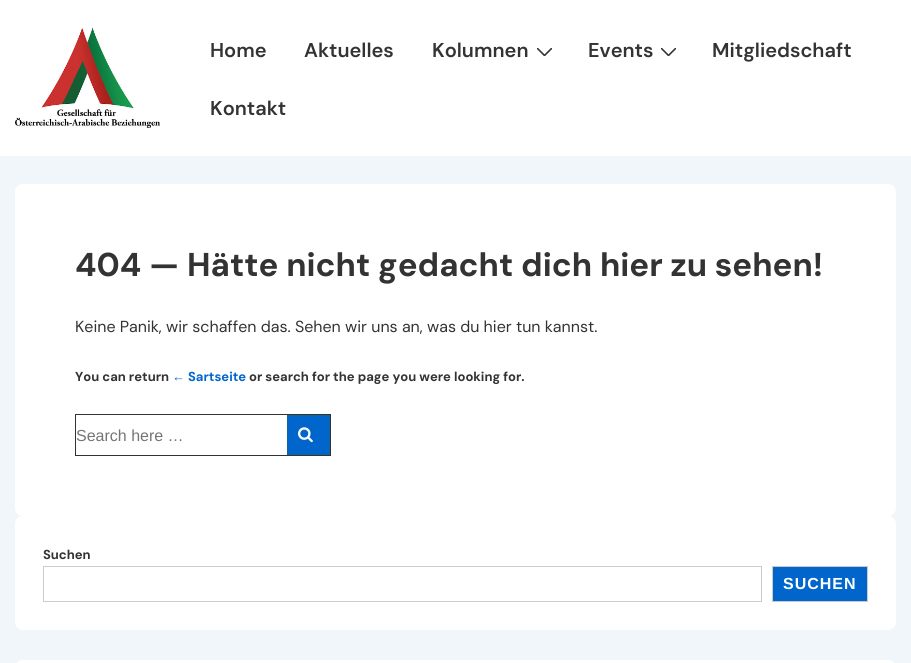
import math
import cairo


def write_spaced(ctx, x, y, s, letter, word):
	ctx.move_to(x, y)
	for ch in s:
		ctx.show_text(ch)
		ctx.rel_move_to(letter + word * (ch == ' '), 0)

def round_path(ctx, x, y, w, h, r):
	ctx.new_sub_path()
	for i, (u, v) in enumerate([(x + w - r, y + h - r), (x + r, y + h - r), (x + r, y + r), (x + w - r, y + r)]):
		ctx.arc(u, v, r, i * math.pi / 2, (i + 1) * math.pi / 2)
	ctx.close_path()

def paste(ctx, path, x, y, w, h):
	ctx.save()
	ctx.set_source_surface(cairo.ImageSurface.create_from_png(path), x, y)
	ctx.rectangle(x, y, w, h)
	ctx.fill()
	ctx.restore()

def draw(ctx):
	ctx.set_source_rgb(0.941, 0.961, 0.98)
	ctx.paint()
	ctx.set_source_rgb(1, 1, 1)
	ctx.rectangle(0, 0, 911, 156)
	ctx.fill()
	paste(ctx, 'media/1.png', 15, 28, 145, 100)
	ctx.select_font_face('DM Sans SemiBold')
	ctx.set_font_size(20)
	ctx.set_source_rgb(0.2, 0.2, 0.2)
	for x, y, s in [
		(210, 57, 'Home'),
		(304, 57, 'Aktuelles'),
		(432, 57, 'Kolumnen'),
	]:
		ctx.move_to(x, y)
		ctx.show_text(s)
	ctx.save()
	ctx.rectangle(537, 48, 15, 8)
	ctx.clip()
	ctx.new_path()
	ctx.move_to(537.5, 48.5)
	ctx.line_to(544.5, 55.5)
	ctx.line_to(551.5, 48.5)
	ctx.set_line_width(1.6)
	ctx.set_line_cap(cairo.LINE_CAP_ROUND)
	ctx.stroke()
	ctx.restore()
	ctx.move_to(588, 57)
	ctx.show_text('Events')
	ctx.save()
	ctx.rectangle(661, 48, 15, 8)
	ctx.clip()
	ctx.new_path()
	ctx.move_to(661.5, 48.5)
	ctx.line_to(668.5, 55.5)
	ctx.line_to(675.5, 48.5)
	ctx.set_line_width(1.6)
	ctx.set_line_cap(cairo.LINE_CAP_ROUND)
	ctx.stroke()
	ctx.restore()
	ctx.move_to(712, 57)
	ctx.show_text('Mitgliedschaft')
	ctx.move_to(210, 115)
	ctx.show_text('Kontakt')
	ctx.set_source_rgb(1, 1, 1)
	round_path(ctx, 15, 184, 881, 332, 8)
	ctx.fill()
	ctx.select_font_face('DM Sans', cairo.FONT_SLANT_NORMAL, cairo.FONT_WEIGHT_BOLD)
	ctx.set_font_size(33)
	ctx.set_source_rgb(0.2, 0.2, 0.2)
	ctx.move_to(75, 276)
	ctx.show_text('404 — Hätte nicht gedacht dich hier zu sehen!')
	ctx.select_font_face('DM Sans')
	ctx.set_font_size(16)
	ctx.move_to(75, 332)
	ctx.show_text('Keine Panik, wir schaffen das. Sehen wir uns an, was du hier tun kannst.')
	ctx.select_font_face('DM Sans', cairo.FONT_SLANT_NORMAL, cairo.FONT_WEIGHT_BOLD)
	ctx.set_font_size(13)
	ctx.move_to(75, 381)
	ctx.show_text('You can return')
	ctx.select_font_face('Liberation Sans', cairo.FONT_SLANT_NORMAL, cairo.FONT_WEIGHT_BOLD)
	ctx.set_source_rgb(0, 0.4, 0.8)
	ctx.move_to(172, 381)
	ctx.show_text('←')
	ctx.select_font_face('DM Sans', cairo.FONT_SLANT_NORMAL, cairo.FONT_WEIGHT_BOLD)
	ctx.move_to(188, 381)
	ctx.show_text('Sartseite')
	ctx.set_source_rgb(0.2, 0.2, 0.2)
	ctx.move_to(249, 381)
	ctx.show_text('or search for the page you were looking for.')
	ctx.rectangle(75.5, 414.5, 255, 41)
	ctx.set_line_width(1)
	ctx.stroke()
	ctx.select_font_face('Liberation Sans')
	ctx.set_font_size(16)
	ctx.set_source_rgb(0.459, 0.459, 0.459)
	ctx.move_to(76, 441)
	ctx.show_text('Search here …')
	ctx.set_source_rgb(0, 0.4, 0.8)
	ctx.rectangle(287.5, 415.5, 42, 39)
	ctx.fill_preserve()
	ctx.set_source_rgb(0.063, 0.396, 0.612)
	ctx.stroke()
	paste(ctx, 'media/2.png', 298, 427, 15, 16)
	ctx.set_source_rgb(1, 1, 1)
	round_path(ctx, 15, 516, 881, 114, 8)
	ctx.fill()
	ctx.select_font_face('DM Sans', cairo.FONT_SLANT_NORMAL, cairo.FONT_WEIGHT_BOLD)
	ctx.set_font_size(13)
	ctx.set_source_rgb(0.2, 0.2, 0.2)
	ctx.move_to(43, 559)
	ctx.show_text('Suchen')
	ctx.rectangle(43.5, 566.5, 718, 35)
	ctx.set_source_rgb(0.8, 0.8, 0.8)
	ctx.stroke()
	ctx.set_source_rgb(0, 0.4, 0.8)
	ctx.rectangle(772.5, 566.5, 95, 35)
	ctx.fill_preserve()
	ctx.set_source_rgb(0.8, 0.8, 0.8)
	ctx.stroke()
	ctx.select_font_face('Liberation Sans', cairo.FONT_SLANT_NORMAL, cairo.FONT_WEIGHT_BOLD)
	ctx.set_font_size(16)
	ctx.set_source_rgb(1, 1, 1)
	write_spaced(ctx, 783, 589, 'SUCHEN', 1, 0)
	round_path(ctx, 15, 660, 881, 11, 8)
	ctx.fill()


surface = cairo.ImageSurface(cairo.FORMAT_RGB24, 911, 663)
ctx = cairo.Context(surface)
options = cairo.FontOptions()
options.set_hint_metrics(cairo.HINT_METRICS_OFF)
options.set_hint_style(cairo.HINT_STYLE_NONE)
ctx.set_font_options(options)
ctx.set_miter_limit(4)
draw(ctx)
surface.write_to_png('image.png')
